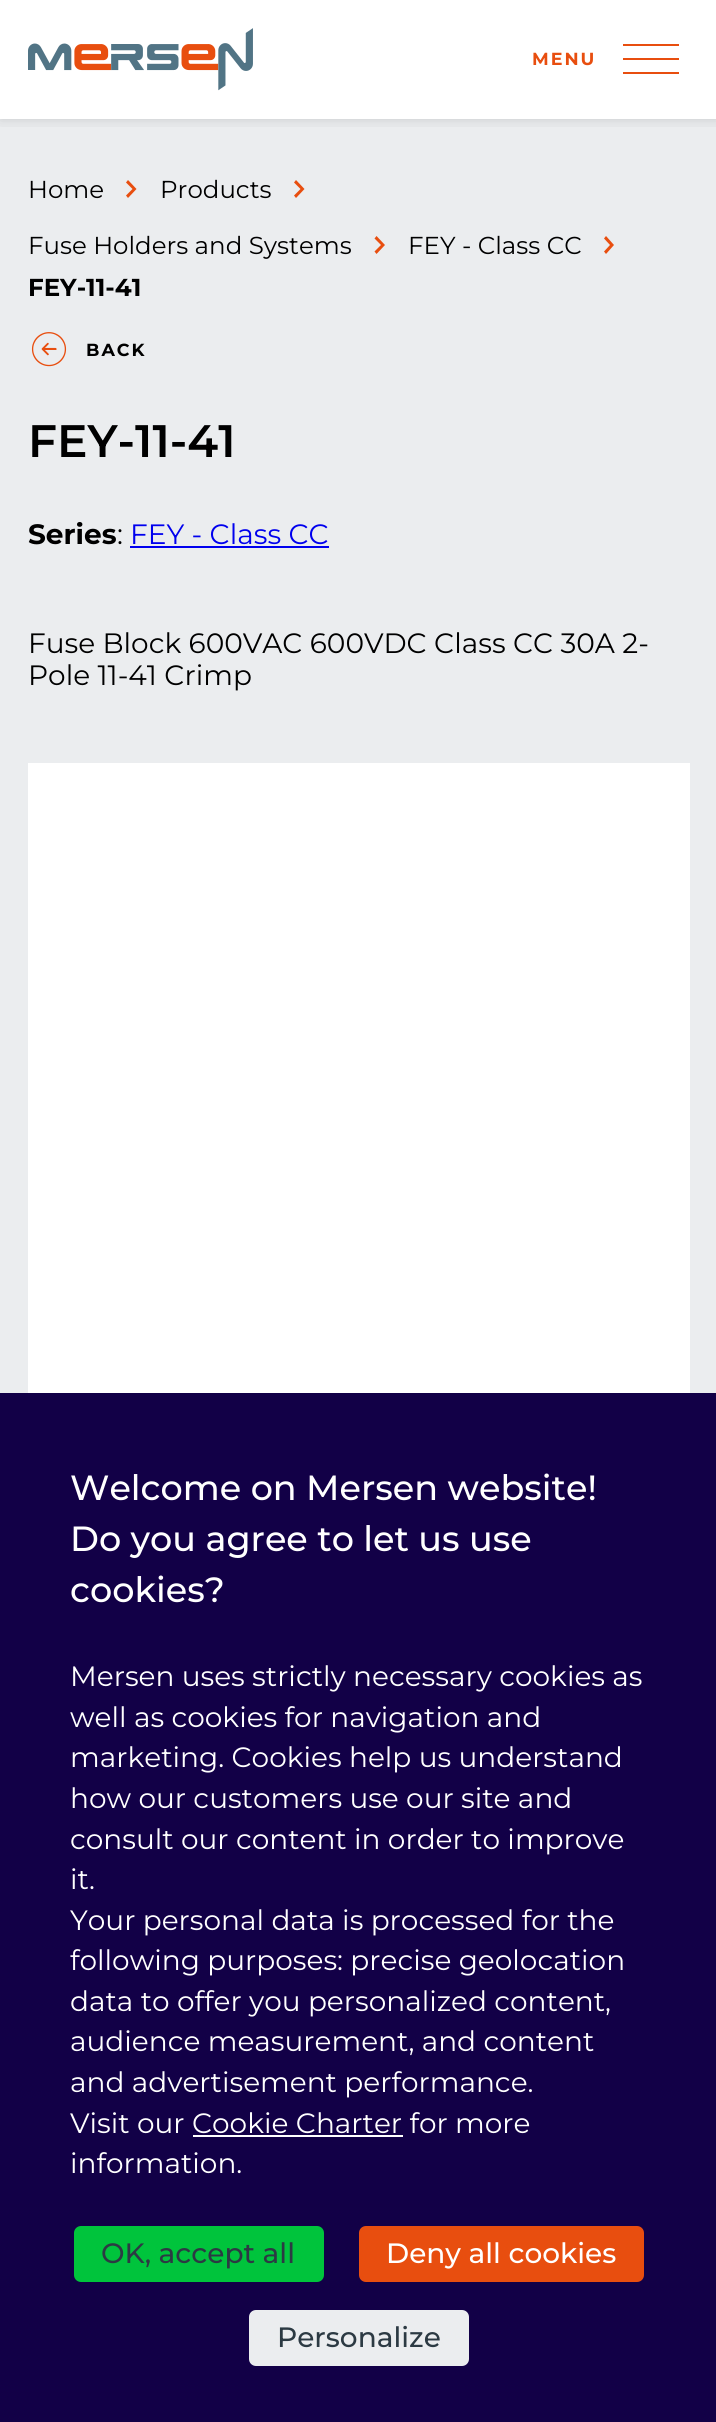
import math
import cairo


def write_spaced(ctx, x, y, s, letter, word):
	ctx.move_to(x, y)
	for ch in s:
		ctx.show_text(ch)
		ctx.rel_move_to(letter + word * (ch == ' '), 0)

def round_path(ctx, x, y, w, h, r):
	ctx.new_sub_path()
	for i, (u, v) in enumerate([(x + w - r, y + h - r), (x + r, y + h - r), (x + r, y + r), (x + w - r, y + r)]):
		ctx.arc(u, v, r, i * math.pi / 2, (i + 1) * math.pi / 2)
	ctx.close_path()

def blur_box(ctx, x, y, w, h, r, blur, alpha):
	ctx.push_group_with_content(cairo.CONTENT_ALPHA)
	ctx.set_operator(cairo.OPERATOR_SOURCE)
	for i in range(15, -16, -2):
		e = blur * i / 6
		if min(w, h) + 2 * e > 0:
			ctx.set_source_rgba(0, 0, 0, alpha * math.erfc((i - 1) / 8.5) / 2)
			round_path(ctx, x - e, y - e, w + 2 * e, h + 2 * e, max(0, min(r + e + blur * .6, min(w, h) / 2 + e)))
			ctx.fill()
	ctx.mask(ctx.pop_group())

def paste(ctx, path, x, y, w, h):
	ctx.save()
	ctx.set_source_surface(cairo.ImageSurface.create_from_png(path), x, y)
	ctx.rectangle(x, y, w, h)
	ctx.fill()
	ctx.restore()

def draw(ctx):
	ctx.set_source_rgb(1, 1, 1)
	ctx.paint()
	ctx.set_source_rgb(0.918, 0.929, 0.937)
	ctx.rectangle(0, 119, 716, 1274)
	ctx.fill()
	ctx.save()
	ctx.rectangle(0, 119, 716, 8)
	ctx.clip()
	ctx.set_source_rgb(0, 0, 0)
	blur_box(ctx, 0, 0, 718, 119, 0, 7, 0.15)
	ctx.restore()
	paste(ctx, 'media/1.png', 28, 28, 225, 63)
	ctx.select_font_face('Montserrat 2 Thin')
	ctx.set_font_size(17.5)
	ctx.set_source_rgb(0.91, 0.306, 0.059)
	write_spaced(ctx, 532, 65, 'MENU', 2, 0)
	ctx.rectangle(623, 44, 56, 2)
	ctx.rectangle(623, 58, 56, 2)
	ctx.rectangle(623, 72, 56, 2)
	ctx.fill()
	ctx.select_font_face('Montserrat Thin')
	ctx.set_font_size(24.5)
	ctx.set_source_rgb(0, 0, 0)
	ctx.move_to(28, 198)
	ctx.show_text('Home')
	ctx.set_source_rgb(0.91, 0.306, 0.059)
	ctx.new_path()
	ctx.move_to(126, 182.5)
	ctx.line_to(128, 180)
	ctx.line_to(136.5, 189)
	ctx.line_to(128, 198)
	ctx.line_to(126, 195.5)
	ctx.line_to(132.5, 189)
	ctx.close_path()
	ctx.fill()
	ctx.set_source_rgb(0, 0, 0)
	ctx.move_to(160, 198)
	ctx.show_text('Products')
	ctx.set_source_rgb(0.91, 0.306, 0.059)
	ctx.new_path()
	ctx.move_to(294, 182.5)
	ctx.line_to(296, 180)
	ctx.line_to(304.5, 189)
	ctx.line_to(296, 198)
	ctx.line_to(294, 195.5)
	ctx.line_to(300.5, 189)
	ctx.close_path()
	ctx.fill()
	ctx.set_source_rgb(0, 0, 0)
	ctx.move_to(28, 254)
	ctx.show_text('Fuse Holders and Systems')
	ctx.set_source_rgb(0.91, 0.306, 0.059)
	ctx.new_path()
	ctx.move_to(374.5, 238.5)
	ctx.line_to(376.5, 236)
	ctx.line_to(385, 245)
	ctx.line_to(376.5, 254)
	ctx.line_to(374.5, 251.5)
	ctx.line_to(381, 245)
	ctx.close_path()
	ctx.fill()
	ctx.set_source_rgb(0, 0, 0)
	ctx.move_to(408, 254)
	ctx.show_text('FEY - Class CC')
	ctx.set_source_rgb(0.91, 0.306, 0.059)
	ctx.new_path()
	ctx.move_to(604, 238.5)
	ctx.line_to(606, 236)
	ctx.line_to(614, 245)
	ctx.line_to(606, 254)
	ctx.line_to(604, 251.5)
	ctx.line_to(610, 245)
	ctx.close_path()
	ctx.fill()
	ctx.select_font_face('Montserrat 2 Thin')
	ctx.set_source_rgb(0, 0, 0)
	ctx.move_to(28, 296)
	ctx.show_text('FEY-11-41')
	paste(ctx, 'media/2.png', 31, 332, 36, 35)
	ctx.set_font_size(17.5)
	write_spaced(ctx, 86, 356, 'BACK', 2, 0)
	ctx.select_font_face('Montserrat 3 Thin')
	ctx.set_font_size(45.5)
	ctx.move_to(28, 457)
	ctx.show_text('FEY-11-41')
	ctx.select_font_face('Montserrat 2 Thin')
	ctx.set_font_size(28)
	ctx.move_to(28, 544)
	ctx.show_text('Series')
	ctx.select_font_face('Montserrat Thin')
	ctx.move_to(117, 544)
	ctx.show_text(':')
	ctx.set_source_rgb(0, 0, 0.933)
	ctx.move_to(130, 544)
	ctx.show_text('FEY - Class CC')
	ctx.rectangle(130, 546, 199, 2)
	ctx.fill()
	ctx.set_source_rgb(0, 0, 0)
	ctx.move_to(28, 653)
	ctx.show_text('Fuse Block 600VAC 600VDC Class CC 30A 2-')
	ctx.move_to(28, 685)
	ctx.show_text('Pole 11-41 Crimp')
	ctx.set_source_rgb(1, 1, 1)
	ctx.rectangle(28, 763, 662, 630)
	ctx.fill()
	ctx.set_source_rgb(0.071, 0, 0.278)
	ctx.rectangle(0, 1393, 716, 1029)
	ctx.fill()
	ctx.select_font_face('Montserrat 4 Thin')
	ctx.set_font_size(35)
	ctx.set_source_rgb(1, 1, 1)
	for x, y, s in [
		(70, 1500, 'Welcome on Mersen website!'),
		(70, 1551, 'Do you agree to let us use'),
		(70, 1602, 'cookies?'),
	]:
		ctx.move_to(x, y)
		ctx.show_text(s)
	ctx.select_font_face('Montserrat Thin')
	ctx.set_font_size(28)
	for x, y, s in [
		(70, 1686, 'Mersen uses strictly necessary cookies as'),
		(70, 1727, 'well as cookies for navigation and'),
		(70, 1767, 'marketing. Cookies help us understand'),
		(70, 1808, 'how our customers use our site and'),
		(70, 1849, 'consult our content in order to improve'),
		(70, 1889, 'it.'),
		(70, 1930, 'Your personal data is processed for the'),
		(70, 1970, 'following purposes: precise geolocation'),
		(70, 2011, 'data to offer you personalized content,'),
		(70, 2051, 'audience measurement, and content'),
		(70, 2092, 'and advertisement performance.'),
		(70, 2133, 'Visit our Cookie Charter for more'),
	]:
		ctx.move_to(x, y)
		ctx.show_text(s)
	ctx.rectangle(193, 2135, 210, 2)
	ctx.fill()
	ctx.move_to(70, 2173)
	ctx.show_text('information.')
	ctx.set_source_rgb(0, 0.769, 0.235)
	round_path(ctx, 74, 2226, 250, 56, 7)
	ctx.fill()
	ctx.select_font_face('Montserrat 4 Thin')
	ctx.set_source_rgb(0.173, 0.227, 0.263)
	ctx.move_to(101, 2263)
	ctx.show_text('OK, accept all')
	ctx.set_source_rgb(0.91, 0.306, 0.059)
	round_path(ctx, 359, 2226, 285, 56, 7)
	ctx.fill()
	ctx.set_source_rgb(1, 1, 1)
	ctx.move_to(386, 2263)
	ctx.show_text('Deny all cookies')
	ctx.set_source_rgb(0.918, 0.929, 0.937)
	round_path(ctx, 249, 2310, 220, 56, 7)
	ctx.fill()
	ctx.set_source_rgb(0.173, 0.227, 0.263)
	ctx.move_to(277, 2347)
	ctx.show_text('Personalize')


surface = cairo.ImageSurface(cairo.FORMAT_RGB24, 716, 2422)
ctx = cairo.Context(surface)
options = cairo.FontOptions()
options.set_hint_metrics(cairo.HINT_METRICS_OFF)
options.set_hint_style(cairo.HINT_STYLE_NONE)
ctx.set_font_options(options)
ctx.set_miter_limit(4)
draw(ctx)
surface.write_to_png('image.png')
